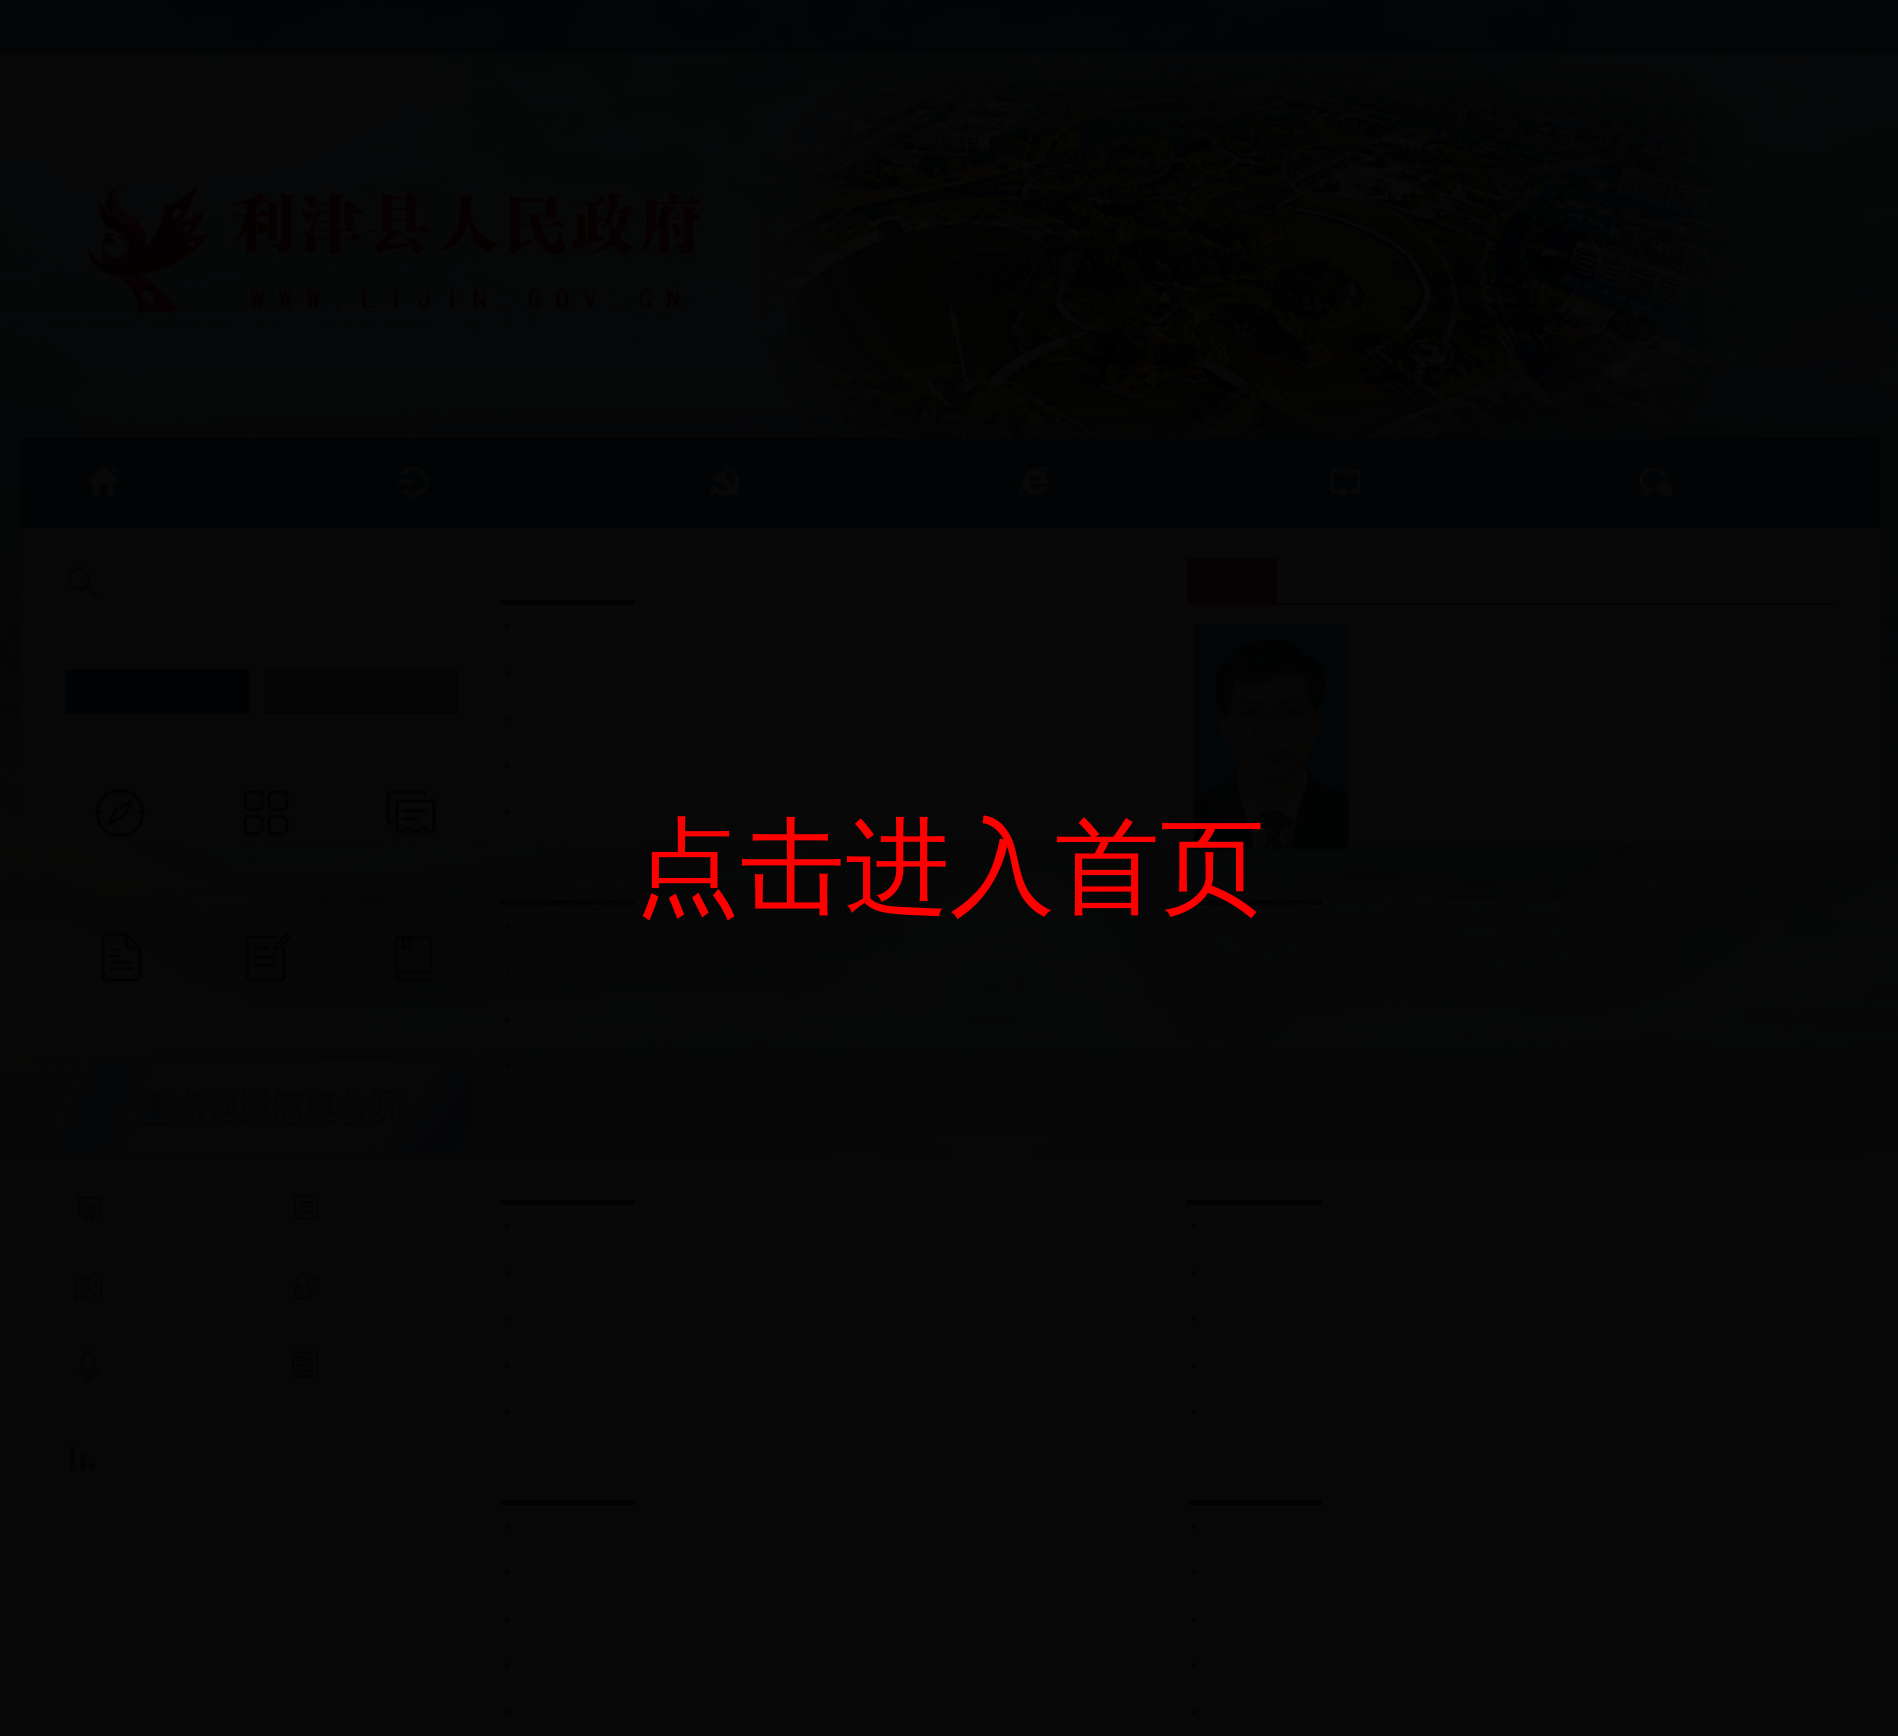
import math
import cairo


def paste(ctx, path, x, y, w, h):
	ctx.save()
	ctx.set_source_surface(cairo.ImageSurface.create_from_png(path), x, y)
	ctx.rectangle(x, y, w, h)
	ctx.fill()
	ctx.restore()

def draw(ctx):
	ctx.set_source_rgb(0.031, 0.031, 0.031)
	ctx.paint()
	paste(ctx, 'media/1.png', 0, 0, 1898, 1373)
	ctx.set_source_rgba(0, 0.012, 0.02, 0.6)
	ctx.rectangle(0, 0, 1898, 53)
	ctx.fill()
	paste(ctx, 'media/2.png', 84, 53, 1685, 385)
	ctx.set_source_rgba(0, 0.012, 0.02, 0.8)
	ctx.rectangle(20, 438, 1860, 90)
	ctx.fill()
	paste(ctx, 'media/3.png', 88, 466, 31, 33)
	paste(ctx, 'media/4.png', 397, 466, 33, 33)
	paste(ctx, 'media/5.png', 709, 466, 31, 31)
	paste(ctx, 'media/6.png', 1018, 466, 31, 31)
	paste(ctx, 'media/7.png', 1330, 466, 31, 31)
	paste(ctx, 'media/8.png', 1639, 467, 34, 32)
	ctx.set_source_rgb(0.031, 0.031, 0.031)
	ctx.rectangle(20, 528, 1860, 314)
	ctx.fill()
	paste(ctx, 'media/9.png', 67, 566, 31, 31)
	ctx.set_source_rgb(0, 0.008, 0.016)
	ctx.rectangle(65, 669, 184, 45)
	ctx.fill()
	ctx.set_source_rgb(0.016, 0.016, 0.016)
	ctx.rectangle(264, 669, 195, 45)
	ctx.fill()
	paste(ctx, 'media/10.png', 95, 788, 50, 50)
	paste(ctx, 'media/11.png', 242, 790, 47, 46)
	paste(ctx, 'media/12.png', 386, 790, 50, 46)
	paste(ctx, 'media/13.png', 100, 932, 42, 50)
	paste(ctx, 'media/14.png', 245, 932, 47, 50)
	paste(ctx, 'media/15.png', 394, 935, 40, 47)
	paste(ctx, 'media/16.png', 49, 1062, 428, 90)
	paste(ctx, 'media/17.png', 76, 1196, 27, 27)
	paste(ctx, 'media/18.png', 293, 1195, 26, 25)
	paste(ctx, 'media/19.png', 74, 1273, 29, 28)
	paste(ctx, 'media/20.png', 293, 1273, 27, 27)
	paste(ctx, 'media/21.png', 77, 1351, 23, 31)
	paste(ctx, 'media/22.png', 292, 1351, 27, 27)
	paste(ctx, 'media/23.png', 64, 1441, 35, 34)
	paste(ctx, 'media/24.png', 499, 601, 649, 2)
	ctx.set_source_rgb(0, 0.008, 0.016)
	ctx.rectangle(500, 600, 135, 5)
	ctx.fill()
	paste(ctx, 'media/25.png', 503, 623, 8, 6)
	paste(ctx, 'media/26.png', 503, 670, 8, 6)
	paste(ctx, 'media/25.png', 503, 716, 8, 6)
	paste(ctx, 'media/26.png', 503, 763, 8, 6)
	paste(ctx, 'media/25.png', 503, 809, 8, 6)
	ctx.set_source_rgb(0.024, 0.004, 0.008)
	ctx.rectangle(1187, 603, 648, 2)
	ctx.fill()
	ctx.rectangle(1187, 558, 90, 45)
	ctx.fill()
	paste(ctx, 'media/27.png', 1194, 624, 155, 225)
	paste(ctx, 'media/24.png', 499, 901, 649, 2)
	ctx.set_source_rgb(0, 0.008, 0.016)
	ctx.rectangle(500, 900, 135, 5)
	ctx.fill()
	paste(ctx, 'media/25.png', 503, 923, 8, 6)
	paste(ctx, 'media/26.png', 503, 970, 8, 6)
	paste(ctx, 'media/25.png', 503, 1016, 8, 6)
	paste(ctx, 'media/26.png', 503, 1063, 8, 6)
	paste(ctx, 'media/25.png', 503, 1109, 8, 6)
	paste(ctx, 'media/24.png', 1186, 901, 649, 2)
	ctx.rectangle(1187, 900, 135, 5)
	ctx.fill()
	paste(ctx, 'media/24.png', 499, 1201, 649, 2)
	ctx.rectangle(500, 1200, 135, 5)
	ctx.fill()
	paste(ctx, 'media/25.png', 503, 1223, 8, 6)
	paste(ctx, 'media/26.png', 503, 1270, 8, 6)
	paste(ctx, 'media/25.png', 503, 1316, 8, 6)
	paste(ctx, 'media/26.png', 503, 1363, 8, 6)
	paste(ctx, 'media/25.png', 503, 1409, 8, 6)
	paste(ctx, 'media/24.png', 1186, 1201, 649, 2)
	ctx.rectangle(1187, 1200, 135, 5)
	ctx.fill()
	paste(ctx, 'media/28.png', 1190, 1223, 8, 6)
	paste(ctx, 'media/29.png', 1190, 1270, 8, 6)
	paste(ctx, 'media/28.png', 1190, 1316, 8, 6)
	paste(ctx, 'media/29.png', 1190, 1363, 8, 6)
	paste(ctx, 'media/28.png', 1190, 1409, 8, 6)
	paste(ctx, 'media/24.png', 499, 1501, 649, 2)
	ctx.rectangle(500, 1500, 135, 5)
	ctx.fill()
	paste(ctx, 'media/25.png', 503, 1523, 8, 6)
	paste(ctx, 'media/26.png', 503, 1570, 8, 6)
	paste(ctx, 'media/25.png', 503, 1616, 8, 6)
	paste(ctx, 'media/26.png', 503, 1663, 8, 6)
	paste(ctx, 'media/25.png', 503, 1709, 8, 6)
	paste(ctx, 'media/24.png', 1186, 1501, 649, 2)
	ctx.rectangle(1187, 1500, 135, 5)
	ctx.fill()
	paste(ctx, 'media/28.png', 1190, 1523, 8, 6)
	paste(ctx, 'media/29.png', 1190, 1570, 8, 6)
	paste(ctx, 'media/28.png', 1190, 1616, 8, 6)
	paste(ctx, 'media/29.png', 1190, 1663, 8, 6)
	paste(ctx, 'media/28.png', 1190, 1709, 8, 6)
	ctx.select_font_face('WenQuanYi Zen Hei Medium')
	ctx.set_font_size(105)
	ctx.set_source_rgb(1, 0, 0)
	ctx.move_to(635, 903)
	ctx.show_text('点击进入首页')


surface = cairo.ImageSurface(cairo.FORMAT_RGB24, 1898, 1736)
ctx = cairo.Context(surface)
options = cairo.FontOptions()
options.set_hint_metrics(cairo.HINT_METRICS_OFF)
options.set_hint_style(cairo.HINT_STYLE_NONE)
ctx.set_font_options(options)
ctx.set_miter_limit(4)
draw(ctx)
surface.write_to_png('image.png')
